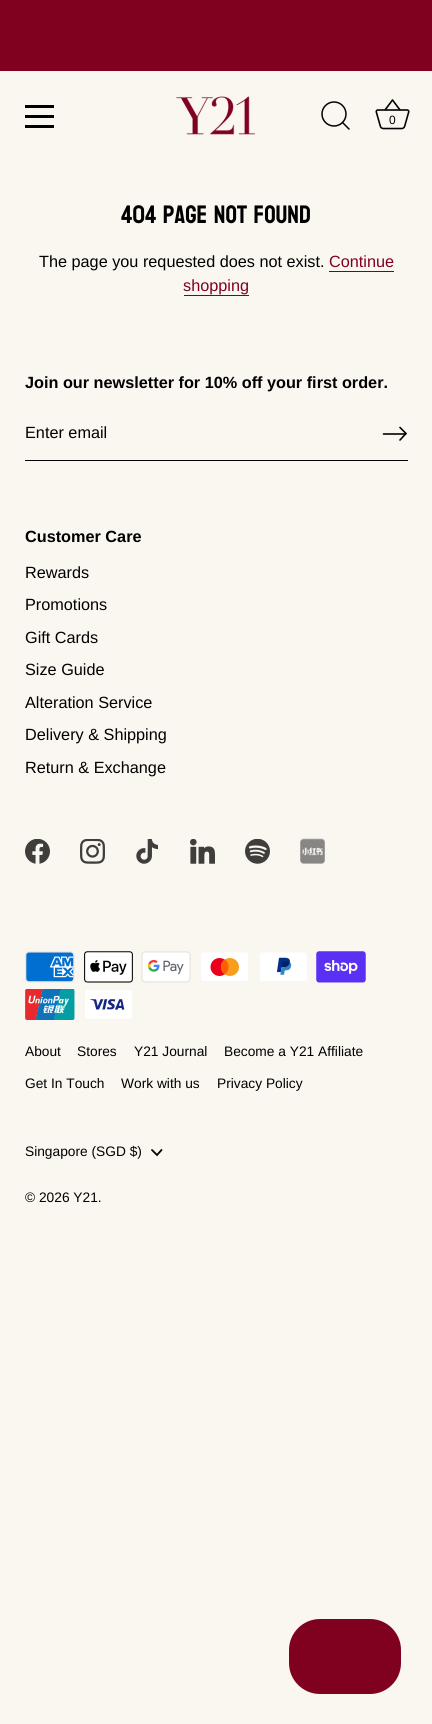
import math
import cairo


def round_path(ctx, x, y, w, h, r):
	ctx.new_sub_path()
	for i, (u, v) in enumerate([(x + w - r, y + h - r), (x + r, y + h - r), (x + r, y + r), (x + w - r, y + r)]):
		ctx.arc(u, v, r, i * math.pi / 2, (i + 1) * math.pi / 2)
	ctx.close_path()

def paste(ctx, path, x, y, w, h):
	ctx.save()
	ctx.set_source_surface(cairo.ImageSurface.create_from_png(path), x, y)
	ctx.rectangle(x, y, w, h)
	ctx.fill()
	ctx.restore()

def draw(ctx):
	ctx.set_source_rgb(0.98, 0.965, 0.941)
	ctx.paint()
	ctx.set_source_rgb(0.502, 0, 0.125)
	ctx.rectangle(0, 0, 432, 71)
	ctx.fill()
	ctx.set_source_rgb(0, 0, 0)
	ctx.rectangle(25, 105, 29, 3)
	ctx.rectangle(25, 115, 29, 3)
	ctx.rectangle(25, 125, 29, 3)
	ctx.fill()
	paste(ctx, 'media/1.png', 176, 96, 79, 39)
	ctx.arc(334, 114, 12, 0, 2 * math.pi)
	ctx.set_line_width(1.5)
	ctx.stroke()
	ctx.new_path()
	ctx.move_to(349, 129)
	ctx.line_to(342.5, 122.5)
	ctx.set_line_cap(cairo.LINE_CAP_ROUND)
	ctx.set_line_join(cairo.LINE_JOIN_ROUND)
	ctx.stroke()
	paste(ctx, 'media/2.png', 375, 99, 35, 31)
	ctx.select_font_face('Liberation Sans')
	ctx.set_font_size(12)
	ctx.move_to(389, 124)
	ctx.show_text('0')
	ctx.select_font_face('Bayon')
	ctx.set_font_size(25.25)
	ctx.move_to(121, 223)
	ctx.show_text('404 Page Not Found')
	ctx.select_font_face('Liberation Sans')
	ctx.set_font_size(16.25)
	ctx.move_to(39, 267)
	ctx.show_text('The page you requested does not exist.')
	ctx.set_source_rgb(0.502, 0, 0.125)
	ctx.move_to(329, 267)
	ctx.show_text('Continue')
	ctx.rectangle(329, 271, 65, 1)
	ctx.fill()
	ctx.move_to(183, 291)
	ctx.show_text('shopping')
	ctx.rectangle(184, 295, 65, 1)
	ctx.fill()
	ctx.select_font_face('Liberation Sans', cairo.FONT_SLANT_NORMAL, cairo.FONT_WEIGHT_BOLD)
	ctx.set_source_rgb(0, 0, 0)
	ctx.move_to(25, 388)
	ctx.show_text('Join our newsletter for 10% off your first order.')
	ctx.rectangle(25, 460, 383, 1)
	ctx.fill()
	ctx.select_font_face('Liberation Sans')
	ctx.move_to(25, 438)
	ctx.show_text('Enter email')
	ctx.new_path()
	ctx.move_to(400, 440)
	ctx.line_to(406, 433.5)
	ctx.line_to(400, 427.5)
	ctx.set_line_width(1.6)
	ctx.set_line_join(cairo.LINE_JOIN_MITER)
	ctx.stroke()
	ctx.new_path()
	ctx.move_to(405.5, 434)
	ctx.line_to(383.5, 434)
	ctx.set_line_join(cairo.LINE_JOIN_ROUND)
	ctx.stroke()
	ctx.select_font_face('Liberation Sans', cairo.FONT_SLANT_NORMAL, cairo.FONT_WEIGHT_BOLD)
	ctx.move_to(25, 542)
	ctx.show_text('Customer Care')
	ctx.select_font_face('Liberation Sans')
	for x, y, s in [
		(25, 578, 'Rewards'),
		(25, 610, 'Promotions'),
		(25, 643, 'Gift Cards'),
		(25, 675, 'Size Guide'),
		(25, 708, 'Alteration Service'),
		(25, 740, 'Delivery & Shipping'),
		(25, 773, 'Return & Exchange'),
	]:
		ctx.move_to(x, y)
		ctx.show_text(s)
	paste(ctx, 'media/3.png', 25, 839, 25, 25)
	paste(ctx, 'media/4.png', 80, 839, 25, 25)
	paste(ctx, 'media/5.png', 136, 839, 22, 25)
	paste(ctx, 'media/6.png', 190, 839, 25, 25)
	paste(ctx, 'media/7.png', 245, 839, 25, 25)
	paste(ctx, 'media/8.png', 300, 838, 25, 26)
	paste(ctx, 'media/9.png', 25, 951, 50, 32)
	paste(ctx, 'media/10.png', 84, 951, 49, 32)
	paste(ctx, 'media/11.png', 141, 951, 50, 32)
	paste(ctx, 'media/12.png', 201, 952, 47, 29)
	paste(ctx, 'media/13.png', 260, 952, 47, 29)
	paste(ctx, 'media/14.png', 316, 951, 50, 32)
	paste(ctx, 'media/15.png', 25, 989, 50, 31)
	paste(ctx, 'media/16.png', 85, 990, 47, 29)
	ctx.set_font_size(13.75)
	for x, y, s in [
		(25, 1056, 'About'),
		(77, 1056, 'Stores'),
		(134, 1056, 'Y21 Journal'),
		(224, 1056, 'Become a Y21 Affiliate'),
		(25, 1088, 'Get In Touch'),
		(121, 1088, 'Work with us'),
		(217, 1088, 'Privacy Policy'),
		(25, 1156, 'Singapore (SGD $)'),
	]:
		ctx.move_to(x, y)
		ctx.show_text(s)
	ctx.new_path()
	ctx.move_to(152, 1150)
	ctx.line_to(157, 1155)
	ctx.line_to(161.5, 1150)
	ctx.set_line_width(1.8)
	ctx.set_line_join(cairo.LINE_JOIN_MITER)
	ctx.stroke()
	ctx.move_to(25, 1202)
	ctx.show_text('© 2026 Y21.')
	ctx.set_source_rgb(0.502, 0, 0.125)
	round_path(ctx, 289, 1619, 112, 75, 31)
	ctx.fill()


surface = cairo.ImageSurface(cairo.FORMAT_RGB24, 432, 1724)
ctx = cairo.Context(surface)
options = cairo.FontOptions()
options.set_hint_metrics(cairo.HINT_METRICS_OFF)
options.set_hint_style(cairo.HINT_STYLE_NONE)
ctx.set_font_options(options)
ctx.set_miter_limit(4)
draw(ctx)
surface.write_to_png('image.png')
